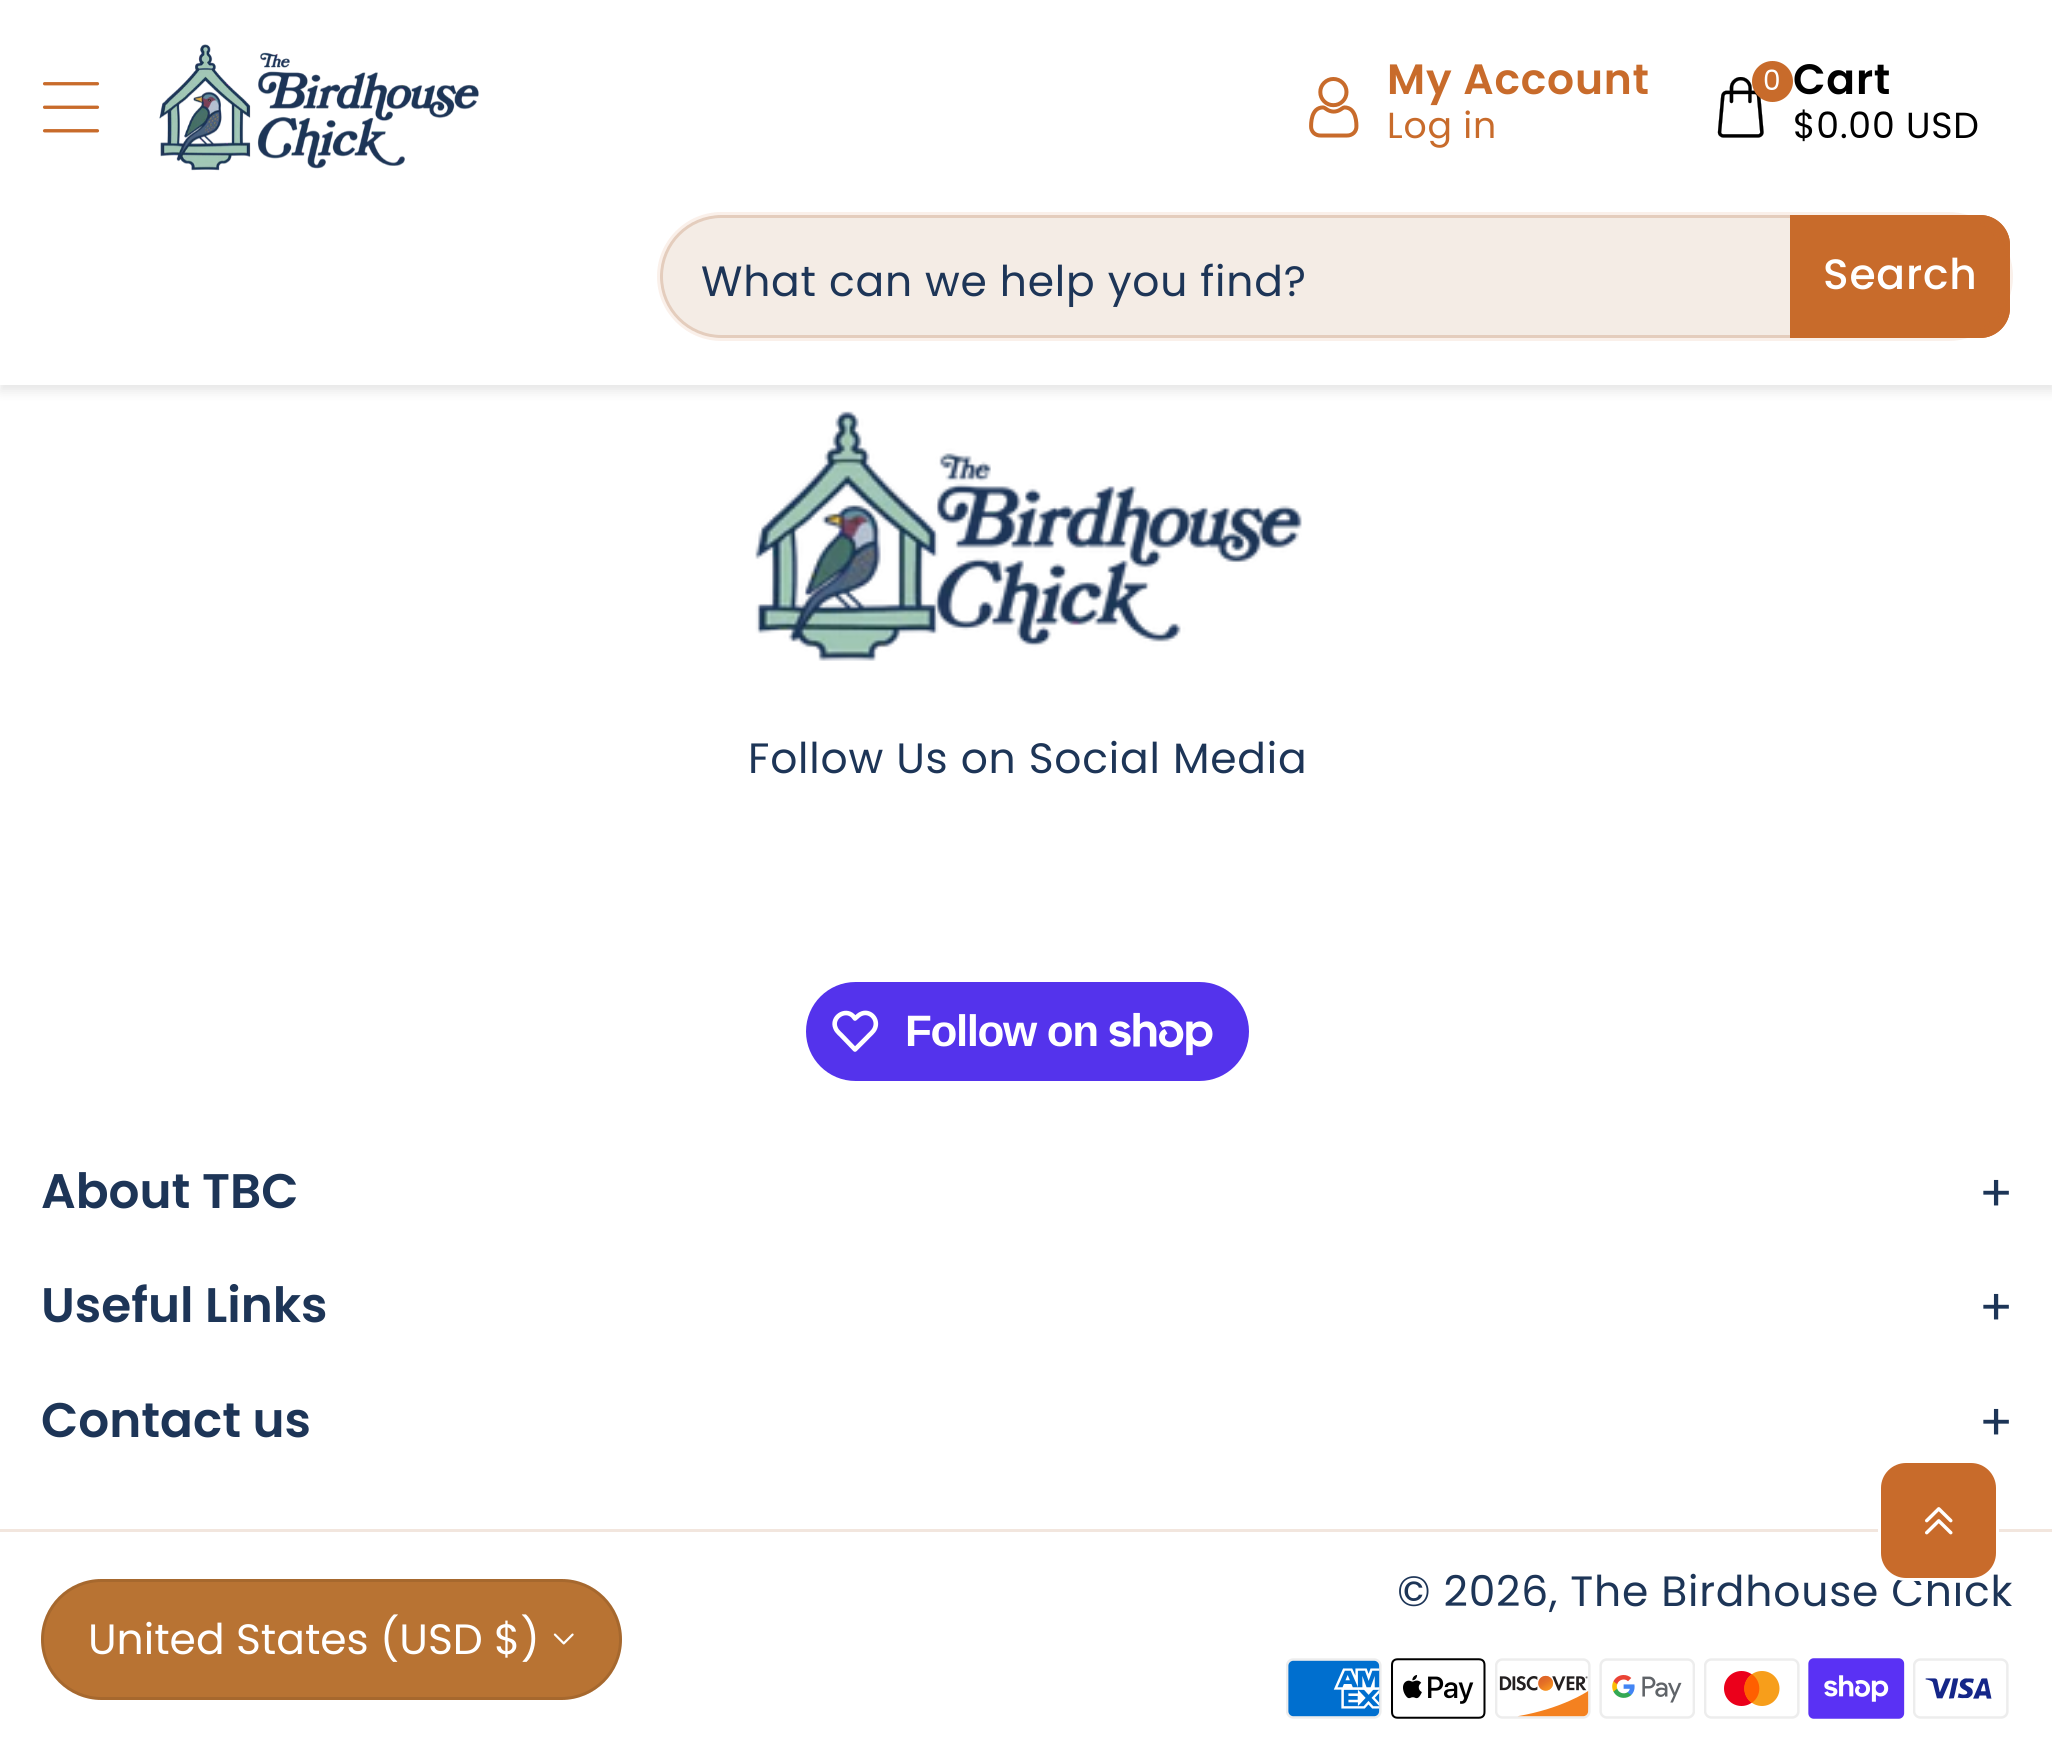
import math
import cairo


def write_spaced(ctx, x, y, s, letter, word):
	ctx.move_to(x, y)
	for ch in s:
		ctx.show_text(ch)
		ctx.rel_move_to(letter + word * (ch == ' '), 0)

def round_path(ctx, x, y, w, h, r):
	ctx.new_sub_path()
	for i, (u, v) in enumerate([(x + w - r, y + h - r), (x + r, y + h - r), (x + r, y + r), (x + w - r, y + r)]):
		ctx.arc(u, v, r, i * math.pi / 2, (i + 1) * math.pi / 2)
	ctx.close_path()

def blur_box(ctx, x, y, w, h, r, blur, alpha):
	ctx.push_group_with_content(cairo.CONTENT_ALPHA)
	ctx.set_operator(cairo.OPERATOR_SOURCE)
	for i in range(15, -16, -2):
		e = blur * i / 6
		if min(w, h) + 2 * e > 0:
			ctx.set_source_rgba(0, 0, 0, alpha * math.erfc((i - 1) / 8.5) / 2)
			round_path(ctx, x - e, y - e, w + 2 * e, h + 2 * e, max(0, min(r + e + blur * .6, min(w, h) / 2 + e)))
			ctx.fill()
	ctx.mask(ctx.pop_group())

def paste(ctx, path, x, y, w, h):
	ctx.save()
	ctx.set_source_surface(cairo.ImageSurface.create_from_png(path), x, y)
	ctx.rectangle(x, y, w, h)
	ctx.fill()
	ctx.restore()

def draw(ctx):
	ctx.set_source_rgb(1, 1, 1)
	ctx.paint()
	ctx.set_source_rgb(0, 0, 0)
	blur_box(ctx, 0, 6, 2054, 385, 0, 5.5, 0.1)
	ctx.set_source_rgb(1, 1, 1)
	ctx.rectangle(0, 0, 2052, 385)
	ctx.fill()
	paste(ctx, 'media/1.png', 42, 82, 58, 51)
	paste(ctx, 'media/2.png', 159, 44, 320, 127)
	paste(ctx, 'media/3.png', 1309, 77, 50, 61)
	ctx.select_font_face('Poppins SemiBold')
	ctx.set_font_size(42.4)
	ctx.set_source_rgb(0.784, 0.42, 0.169)
	write_spaced(ctx, 1387, 94, 'My Account', 0.8, 0)
	ctx.select_font_face('Poppins')
	ctx.set_font_size(36.25)
	write_spaced(ctx, 1387, 138, 'Log in', 0.8, 0)
	paste(ctx, 'media/4.png', 1717, 77, 47, 61)
	ctx.arc(1772.5, 81.5, 20.5, 0, 2 * math.pi)
	ctx.fill()
	ctx.set_font_size(28)
	ctx.set_source_rgb(1, 1, 1)
	write_spaced(ctx, 1763, 90, '0', 0.8, 0)
	ctx.select_font_face('Poppins SemiBold')
	ctx.set_font_size(42.4)
	ctx.set_source_rgb(0, 0, 0)
	write_spaced(ctx, 1793, 94, 'Cart', 0.8, 0)
	ctx.select_font_face('Poppins')
	ctx.set_font_size(36.25)
	write_spaced(ctx, 1793, 138, '$0.00 USD', 0.8, 0)
	ctx.set_source_rgb(0.957, 0.922, 0.898)
	round_path(ctx, 661.5, 216.5, 1347, 120, 60)
	ctx.fill_preserve()
	ctx.set_source_rgb(0.894, 0.804, 0.741)
	ctx.set_line_width(3)
	ctx.stroke()
	ctx.set_source_rgb(0.784, 0.42, 0.169)
	ctx.new_path()
	ctx.move_to(1790, 215)
	ctx.line_to(1980, 215)
	ctx.curve_to(1996.5, 215, 2010, 228.5, 2010, 245)
	ctx.line_to(2010, 308)
	ctx.curve_to(2010, 324.5, 1996.5, 338, 1980, 338)
	ctx.line_to(1790, 338)
	ctx.close_path()
	ctx.fill()
	ctx.new_path()
	ctx.move_to(1791.5, 216.5)
	ctx.line_to(1980, 216.5)
	ctx.curve_to(1995.5, 216.5, 2008.5, 229.5, 2008.5, 245)
	ctx.line_to(2008.5, 308)
	ctx.curve_to(2008.5, 323.5, 1995.5, 336.5, 1980, 336.5)
	ctx.line_to(1791.5, 336.5)
	ctx.close_path()
	ctx.stroke()
	round_path(ctx, 658.5, 213.5, 1353, 126, 63)
	ctx.set_source_rgba(0.784, 0.42, 0.169, 0.1)
	ctx.stroke()
	ctx.set_font_size(42.4)
	ctx.set_source_rgb(0.114, 0.208, 0.341)
	write_spaced(ctx, 701, 296, 'What can we help you find?', 0.8, 0)
	ctx.select_font_face('Poppins Medium')
	ctx.set_source_rgb(1, 1, 1)
	write_spaced(ctx, 1823, 289, 'Search', 0.8, 0)
	paste(ctx, 'media/5.png', 755, 411, 547, 250)
	ctx.select_font_face('Poppins')
	ctx.set_source_rgb(0.114, 0.208, 0.341)
	write_spaced(ctx, 748, 773, 'Follow Us on Social Media', 0.8, 0)
	ctx.set_source_rgb(0.329, 0.2, 0.922)
	round_path(ctx, 806, 982, 443, 99, 49.5)
	ctx.fill()
	ctx.new_path()
	ctx.move_to(853, 1016)
	ctx.line_to(855, 1018.5)
	ctx.curve_to(857.5, 1016.5, 859, 1014.5, 862, 1013.5)
	ctx.curve_to(870.5, 1010.5, 878.5, 1019.5, 875, 1028)
	ctx.curve_to(873.5, 1032, 869.5, 1034.5, 867, 1037.5)
	ctx.line_to(855, 1049.5)
	ctx.line_to(843.5, 1037.5)
	ctx.curve_to(841, 1034.5, 837, 1032, 835.5, 1028)
	ctx.curve_to(831, 1017.5, 845, 1008, 853, 1016)
	ctx.close_path()
	ctx.set_source_rgb(1, 1, 1)
	ctx.set_line_width(4.6)
	ctx.set_line_join(cairo.LINE_JOIN_ROUND)
	ctx.stroke()
	ctx.select_font_face('Liberation Sans', cairo.FONT_SLANT_NORMAL, cairo.FONT_WEIGHT_BOLD)
	ctx.set_font_size(44)
	write_spaced(ctx, 905, 1046, 'Follow on', -1.4, 0)
	paste(ctx, 'media/6.png', 1109, 1012, 104, 44)
	ctx.select_font_face('Poppins SemiBold')
	ctx.set_font_size(48.5)
	ctx.set_source_rgb(0.114, 0.208, 0.341)
	ctx.move_to(41, 1208)
	ctx.show_text('About TBC')
	ctx.select_font_face('Poppins')
	ctx.set_font_size(50)
	ctx.move_to(1979, 1211)
	ctx.show_text('+')
	ctx.select_font_face('Poppins SemiBold')
	ctx.set_font_size(48.5)
	ctx.move_to(41, 1322)
	ctx.show_text('Useful Links')
	ctx.select_font_face('Poppins')
	ctx.set_font_size(50)
	ctx.move_to(1979, 1325)
	ctx.show_text('+')
	ctx.select_font_face('Poppins SemiBold')
	ctx.set_font_size(48.5)
	ctx.move_to(41, 1437)
	ctx.show_text('Contact us')
	ctx.select_font_face('Poppins')
	ctx.set_font_size(50)
	ctx.move_to(1979, 1440)
	ctx.show_text('+')
	ctx.set_source_rgb(0.949, 0.902, 0.871)
	ctx.rectangle(0, 1529, 2052, 3)
	ctx.fill()
	ctx.set_font_size(42.4)
	ctx.set_source_rgb(0.114, 0.208, 0.341)
	write_spaced(ctx, 1397, 1606, '© 2026, The Birdhouse Chick', 0.8, 0)
	ctx.set_source_rgb(0.784, 0.42, 0.169)
	round_path(ctx, 1879.5, 1461.5, 118, 118, 26.5)
	ctx.fill_preserve()
	ctx.set_source_rgb(1, 1, 1)
	ctx.set_line_width(3)
	ctx.set_line_join(cairo.LINE_JOIN_MITER)
	ctx.stroke()
	paste(ctx, 'media/7.png', 1925, 1507, 28, 28)
	paste(ctx, 'media/8.png', 1286, 1658, 96, 61)
	paste(ctx, 'media/9.png', 1391, 1658, 95, 61)
	paste(ctx, 'media/10.png', 1495, 1658, 96, 61)
	paste(ctx, 'media/11.png', 1599, 1658, 96, 61)
	paste(ctx, 'media/12.png', 1704, 1658, 96, 61)
	paste(ctx, 'media/13.png', 1808, 1658, 97, 61)
	paste(ctx, 'media/14.png', 1913, 1658, 96, 61)
	ctx.set_source_rgb(0.722, 0.451, 0.2)
	round_path(ctx, 41, 1579, 581, 121, 60.5)
	ctx.fill()
	paste(ctx, 'media/15.png', 553, 1633, 21, 12)
	round_path(ctx, 42.5, 1580.5, 578, 118, 59)
	ctx.set_source_rgba(0, 0, 0, 0.1)
	ctx.stroke()
	ctx.set_source_rgb(1, 1, 1)
	ctx.move_to(88, 1654)
	ctx.show_text('United States (USD $)')


surface = cairo.ImageSurface(cairo.FORMAT_RGB24, 2052, 1746)
ctx = cairo.Context(surface)
options = cairo.FontOptions()
options.set_hint_metrics(cairo.HINT_METRICS_OFF)
options.set_hint_style(cairo.HINT_STYLE_NONE)
ctx.set_font_options(options)
ctx.set_miter_limit(4)
draw(ctx)
surface.write_to_png('image.png')
